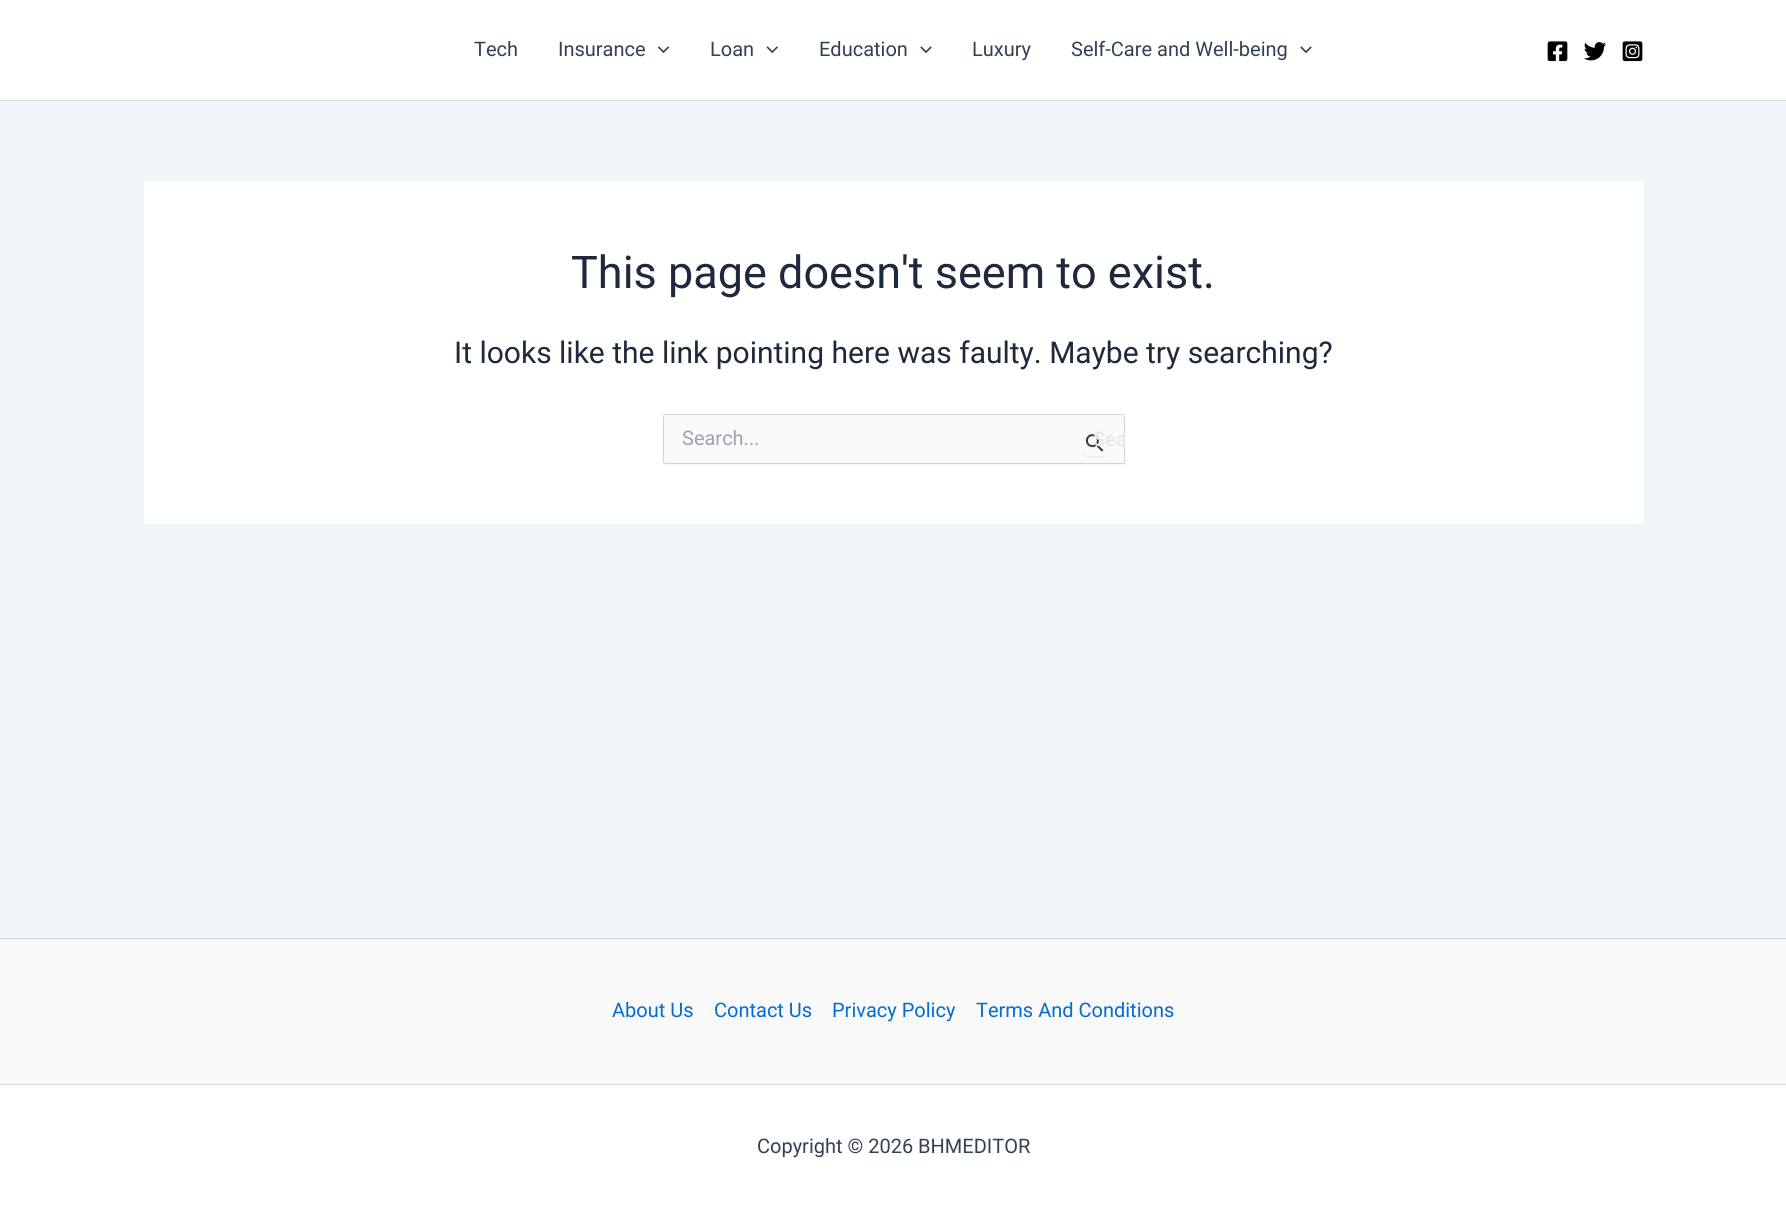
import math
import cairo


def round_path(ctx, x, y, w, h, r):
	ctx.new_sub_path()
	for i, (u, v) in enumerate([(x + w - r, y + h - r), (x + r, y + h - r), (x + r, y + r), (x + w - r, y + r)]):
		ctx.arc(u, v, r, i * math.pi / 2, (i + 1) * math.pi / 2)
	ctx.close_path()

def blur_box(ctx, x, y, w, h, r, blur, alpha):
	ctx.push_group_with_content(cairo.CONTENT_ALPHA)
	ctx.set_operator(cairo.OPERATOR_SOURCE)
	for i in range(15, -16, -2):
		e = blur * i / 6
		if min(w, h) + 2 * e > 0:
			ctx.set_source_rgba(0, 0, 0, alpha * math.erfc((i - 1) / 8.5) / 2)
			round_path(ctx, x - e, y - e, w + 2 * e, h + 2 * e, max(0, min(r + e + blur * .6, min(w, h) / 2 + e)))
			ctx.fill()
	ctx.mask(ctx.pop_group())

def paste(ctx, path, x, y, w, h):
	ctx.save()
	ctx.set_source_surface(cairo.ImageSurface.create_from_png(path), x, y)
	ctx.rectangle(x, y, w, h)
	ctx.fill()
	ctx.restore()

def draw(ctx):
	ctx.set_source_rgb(0.941, 0.961, 0.98)
	ctx.paint()
	ctx.set_source_rgb(1, 1, 1)
	ctx.rectangle(0, 0, 1786, 100)
	ctx.fill()
	ctx.set_source_rgb(0.82, 0.835, 0.859)
	ctx.rectangle(0, 100, 1786, 1)
	ctx.fill()
	ctx.select_font_face('Roboto')
	ctx.set_font_size(20)
	ctx.set_source_rgb(0.2, 0.255, 0.333)
	ctx.move_to(474, 56)
	ctx.show_text('Tech')
	ctx.move_to(558, 56)
	ctx.show_text('Insurance')
	paste(ctx, 'media/1.png', 658, 46, 12, 8)
	ctx.move_to(710, 56)
	ctx.show_text('Loan')
	paste(ctx, 'media/2.png', 766, 46, 12, 8)
	ctx.move_to(819, 56)
	ctx.show_text('Education')
	paste(ctx, 'media/3.png', 920, 46, 12, 8)
	ctx.move_to(972, 56)
	ctx.show_text('Luxury')
	ctx.move_to(1071, 56)
	ctx.show_text('Self-Care and Well-being')
	paste(ctx, 'media/3.png', 1300, 46, 12, 8)
	paste(ctx, 'media/4.png', 1547, 41, 21, 21)
	paste(ctx, 'media/5.png', 1584, 42, 22, 19)
	paste(ctx, 'media/6.png', 1622, 41, 21, 21)
	ctx.set_source_rgb(1, 1, 1)
	ctx.rectangle(144, 181, 1500, 343)
	ctx.fill()
	ctx.set_font_size(45)
	ctx.set_source_rgb(0.118, 0.161, 0.231)
	ctx.move_to(571, 288)
	ctx.show_text('This page doesn\'t seem to exist.')
	ctx.set_font_size(30)
	ctx.move_to(454, 363)
	ctx.show_text('It looks like the link pointing here was faulty. Maybe try searching?')
	ctx.set_source_rgb(0, 0, 0)
	blur_box(ctx, 663, 415, 462, 50, 2.5, 1, 0.05)
	ctx.set_source_rgb(0.98, 0.98, 0.98)
	round_path(ctx, 663.5, 414.5, 461, 49, 2)
	ctx.fill_preserve()
	ctx.set_source_rgb(0.82, 0.835, 0.859)
	ctx.set_line_width(1)
	ctx.stroke()
	ctx.set_font_size(20)
	ctx.set_source_rgb(0.612, 0.639, 0.686)
	ctx.move_to(682, 445)
	ctx.show_text('Search...')
	ctx.save()
	ctx.set_fill_rule(cairo.FILL_RULE_EVEN_ODD)
	ctx.new_path()
	ctx.move_to(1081, 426)
	ctx.line_to(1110, 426)
	ctx.line_to(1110, 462)
	ctx.line_to(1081, 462)
	ctx.close_path()
	ctx.move_to(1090, 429)
	ctx.line_to(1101, 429)
	ctx.curve_to(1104, 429, 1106, 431, 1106, 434)
	ctx.line_to(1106, 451)
	ctx.curve_to(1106, 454, 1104, 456, 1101, 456)
	ctx.line_to(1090, 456)
	ctx.curve_to(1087, 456, 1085, 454, 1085, 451)
	ctx.line_to(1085, 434)
	ctx.curve_to(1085, 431, 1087, 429, 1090, 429)
	ctx.close_path()
	ctx.clip()
	ctx.set_source_rgb(0, 0, 0)
	blur_box(ctx, 1085, 430, 21, 28, 5, 1, 0.05)
	ctx.restore()
	paste(ctx, 'media/7.png', 1085, 434, 19, 18)
	ctx.save()
	round_path(ctx, 1069, 414, 56, 52, 2.5)
	ctx.clip()
	ctx.select_font_face('Roboto Medium')
	ctx.set_source_rgb(0.914, 0.914, 0.914)
	ctx.move_to(1093, 446)
	ctx.show_text('Sea')
	ctx.restore()
	ctx.set_source_rgb(0.976, 0.976, 0.976)
	ctx.rectangle(0, 939, 1786, 145)
	ctx.fill()
	ctx.set_source_rgb(0.82, 0.835, 0.859)
	ctx.rectangle(0, 938, 1786, 1)
	ctx.fill()
	ctx.set_source_rgb(0.016, 0.42, 0.824)
	for x, y, s in [
		(612, 1017, 'About Us'),
		(714, 1017, 'Contact Us'),
		(832, 1017, 'Privacy Policy'),
		(976, 1017, 'Terms And Conditions'),
	]:
		ctx.move_to(x, y)
		ctx.show_text(s)
	ctx.set_source_rgb(1, 1, 1)
	ctx.rectangle(0, 1085, 1786, 125)
	ctx.fill()
	ctx.set_source_rgb(0.82, 0.835, 0.859)
	ctx.rectangle(0, 1084, 1786, 1)
	ctx.fill()
	ctx.set_source_rgb(0.2, 0.255, 0.333)
	ctx.move_to(757, 1153)
	ctx.show_text('Copyright © 2026 BHMEDITOR')


surface = cairo.ImageSurface(cairo.FORMAT_RGB24, 1786, 1210)
ctx = cairo.Context(surface)
options = cairo.FontOptions()
options.set_hint_metrics(cairo.HINT_METRICS_OFF)
options.set_hint_style(cairo.HINT_STYLE_NONE)
ctx.set_font_options(options)
ctx.set_miter_limit(4)
draw(ctx)
surface.write_to_png('image.png')
